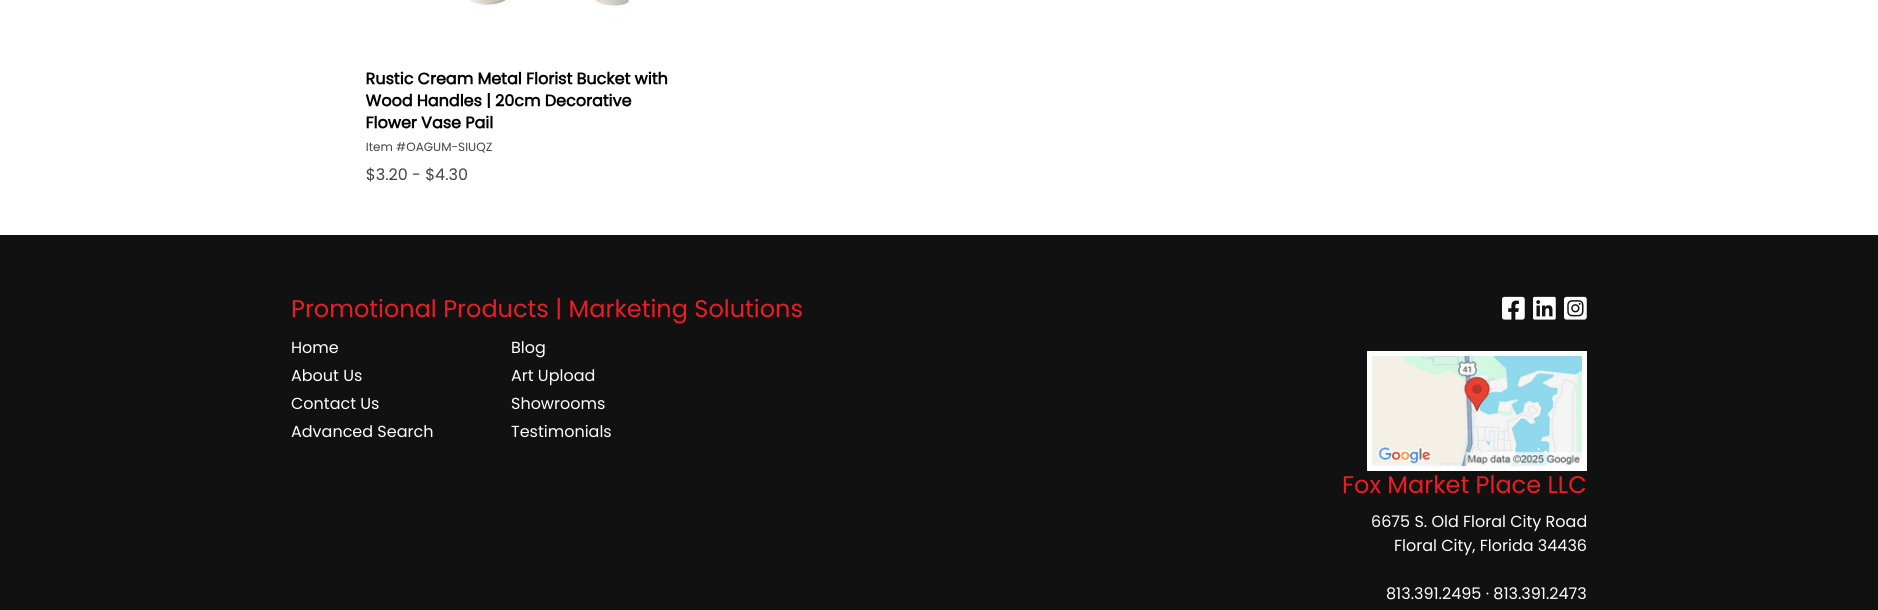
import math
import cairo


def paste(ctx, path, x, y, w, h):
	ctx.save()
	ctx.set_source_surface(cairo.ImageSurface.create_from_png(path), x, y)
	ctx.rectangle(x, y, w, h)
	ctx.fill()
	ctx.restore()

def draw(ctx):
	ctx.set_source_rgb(1, 1, 1)
	ctx.paint()
	paste(ctx, 'media/1.png', 365, 0, 303, 182)
	ctx.set_source_rgb(0.067, 0.067, 0.067)
	ctx.rectangle(0, 235, 1878, 375)
	ctx.fill()
	ctx.select_font_face('Poppins')
	ctx.set_font_size(24)
	ctx.set_source_rgb(0.929, 0.11, 0.141)
	ctx.move_to(291, 317)
	ctx.show_text('Promotional Products | Marketing Solutions')
	ctx.set_font_size(16)
	ctx.set_source_rgb(1, 1, 1)
	for x, y, s in [
		(291, 353, 'Home'),
		(291, 381, 'About Us'),
		(291, 409, 'Contact Us'),
		(291, 437, 'Advanced Search'),
		(511, 353, 'Blog'),
		(511, 381, 'Art Upload'),
		(511, 409, 'Showrooms'),
		(511, 437, 'Testimonials'),
	]:
		ctx.move_to(x, y)
		ctx.show_text(s)
	paste(ctx, 'media/2.png', 1502, 296, 23, 24)
	paste(ctx, 'media/3.png', 1533, 296, 23, 24)
	paste(ctx, 'media/4.png', 1564, 296, 23, 24)
	ctx.rectangle(1367, 351, 220, 120)
	ctx.fill()
	paste(ctx, 'media/5.png', 1372, 356, 210, 110)
	ctx.set_font_size(24)
	ctx.set_source_rgb(0.929, 0.11, 0.141)
	ctx.move_to(1342, 493)
	ctx.show_text('Fox Market Place LLC')
	ctx.set_font_size(16)
	ctx.set_source_rgb(1, 1, 1)
	for x, y, s in [
		(1371, 527, '6675 S. Old Floral City Road'),
		(1394, 551, 'Floral City, Florida 34436'),
		(1386, 599, '813.391.2495 · 813.391.2473'),
	]:
		ctx.move_to(x, y)
		ctx.show_text(s)


surface = cairo.ImageSurface(cairo.FORMAT_RGB24, 1878, 610)
ctx = cairo.Context(surface)
options = cairo.FontOptions()
options.set_hint_metrics(cairo.HINT_METRICS_OFF)
options.set_hint_style(cairo.HINT_STYLE_NONE)
ctx.set_font_options(options)
ctx.set_miter_limit(4)
draw(ctx)
surface.write_to_png('image.png')
